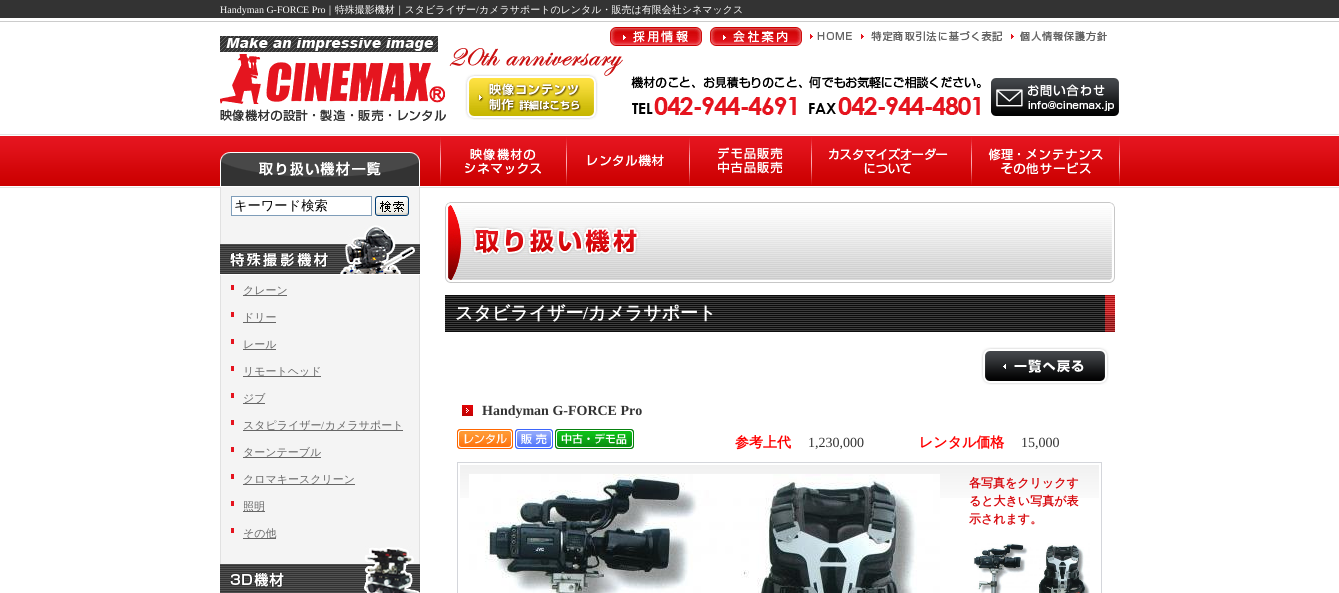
import math
import cairo


def paste(ctx, path, x, y, w, h):
	ctx.save()
	ctx.set_source_surface(cairo.ImageSurface.create_from_png(path), x, y)
	ctx.rectangle(x, y, w, h)
	ctx.fill()
	ctx.restore()

def draw(ctx):
	ctx.set_source_rgb(1, 1, 1)
	ctx.paint()
	paste(ctx, 'media/1.png', 0, 0, 1339, 188)
	ctx.select_font_face('Liberation Serif')
	ctx.set_font_size(10)
	ctx.set_source_rgb(1, 1, 1)
	ctx.move_to(220, 13)
	ctx.show_text('Handyman G-FORCE Pro')
	ctx.select_font_face('WenQuanYi Zen Hei Medium')
	ctx.move_to(325, 13)
	ctx.show_text('｜特殊撮影機材｜スタビライザー カメラサポートのレンタル・販売は有限会社シネマックス')
	ctx.select_font_face('Liberation Serif')
	ctx.move_to(476, 13)
	ctx.show_text('/')
	paste(ctx, 'media/2.png', 220, 36, 226, 85)
	paste(ctx, 'media/3.png', 449, 48, 174, 28)
	paste(ctx, 'media/4.png', 610, 27, 92, 19)
	paste(ctx, 'media/5.png', 710, 27, 92, 19)
	paste(ctx, 'media/6.png', 810, 32, 42, 8)
	paste(ctx, 'media/7.png', 861, 31, 141, 11)
	paste(ctx, 'media/8.png', 1011, 31, 96, 10)
	paste(ctx, 'media/9.png', 465, 74, 133, 46)
	paste(ctx, 'media/10.png', 631, 76, 350, 39)
	paste(ctx, 'media/11.png', 991, 78, 128, 38)
	paste(ctx, 'media/12.png', 220, 152, 200, 34)
	ctx.set_source_rgb(0.957, 0.957, 0.957)
	ctx.rectangle(221, 187, 198, 38)
	ctx.fill()
	ctx.set_source_rgb(0.882, 0.882, 0.882)
	ctx.rectangle(419, 187, 1, 38)
	ctx.rectangle(220, 187, 1, 38)
	ctx.fill()
	ctx.set_source_rgb(1, 1, 1)
	ctx.rectangle(231.5, 196.5, 140, 19)
	ctx.fill_preserve()
	ctx.set_source_rgb(0.498, 0.616, 0.725)
	ctx.set_line_width(1)
	ctx.stroke()
	ctx.select_font_face('WenQuanYi Zen Hei Medium')
	ctx.set_font_size(13.25)
	ctx.set_source_rgb(0, 0, 0)
	ctx.move_to(234, 210)
	ctx.show_text('キーワード検索')
	paste(ctx, 'media/13.png', 375, 196, 34, 20)
	paste(ctx, 'media/14.png', 220, 225, 200, 49)
	ctx.set_source_rgb(0.957, 0.957, 0.957)
	ctx.rectangle(221, 275, 198, 270)
	ctx.fill()
	ctx.set_source_rgb(0.898, 0.082, 0.122)
	ctx.rectangle(231, 285, 3, 5)
	ctx.fill()
	ctx.set_source_rgb(0.882, 0.882, 0.882)
	ctx.rectangle(419, 275, 1, 270)
	ctx.rectangle(220, 275, 1, 270)
	ctx.fill()
	ctx.set_source_rgb(0.4, 0.4, 0.4)
	ctx.rectangle(243, 295, 44, 1)
	ctx.fill()
	ctx.set_font_size(11)
	ctx.move_to(243, 294)
	ctx.show_text('クレーン')
	ctx.set_source_rgb(0.898, 0.082, 0.122)
	ctx.rectangle(231, 312, 3, 5)
	ctx.fill()
	ctx.set_source_rgb(0.4, 0.4, 0.4)
	ctx.rectangle(243, 322, 33, 1)
	ctx.fill()
	ctx.move_to(243, 321)
	ctx.show_text('ドリー')
	ctx.set_source_rgb(0.898, 0.082, 0.122)
	ctx.rectangle(231, 339, 3, 5)
	ctx.fill()
	ctx.set_source_rgb(0.4, 0.4, 0.4)
	ctx.move_to(243, 348)
	ctx.show_text('レール')
	ctx.rectangle(243, 349, 33, 1)
	ctx.fill()
	ctx.set_source_rgb(0.898, 0.082, 0.122)
	ctx.rectangle(231, 366, 3, 5)
	ctx.fill()
	ctx.set_source_rgb(0.4, 0.4, 0.4)
	ctx.rectangle(243, 376, 78, 1)
	ctx.fill()
	ctx.move_to(243, 375)
	ctx.show_text('リモートヘッド')
	ctx.set_source_rgb(0.898, 0.082, 0.122)
	ctx.rectangle(231, 393, 3, 5)
	ctx.fill()
	ctx.set_source_rgb(0.4, 0.4, 0.4)
	ctx.rectangle(243, 403, 22, 1)
	ctx.fill()
	ctx.move_to(243, 402)
	ctx.show_text('ジブ')
	ctx.set_source_rgb(0.898, 0.082, 0.122)
	ctx.rectangle(231, 420, 3, 5)
	ctx.fill()
	ctx.set_source_rgb(0.4, 0.4, 0.4)
	ctx.rectangle(243, 430, 160, 1)
	ctx.fill()
	ctx.move_to(243, 429)
	ctx.show_text('スタピライザー カメラサポート')
	ctx.select_font_face('Liberation Serif')
	ctx.move_to(321, 429)
	ctx.show_text('/')
	ctx.set_source_rgb(0.898, 0.082, 0.122)
	ctx.rectangle(231, 447, 3, 5)
	ctx.fill()
	ctx.set_source_rgb(0.4, 0.4, 0.4)
	ctx.rectangle(243, 457, 78, 1)
	ctx.fill()
	ctx.select_font_face('WenQuanYi Zen Hei Medium')
	ctx.move_to(243, 456)
	ctx.show_text('ターンテーブル')
	ctx.set_source_rgb(0.898, 0.082, 0.122)
	ctx.rectangle(231, 474, 3, 5)
	ctx.fill()
	ctx.set_source_rgb(0.4, 0.4, 0.4)
	ctx.rectangle(243, 484, 112, 1)
	ctx.fill()
	ctx.move_to(243, 483)
	ctx.show_text('クロマキースクリーン')
	ctx.set_source_rgb(0.898, 0.082, 0.122)
	ctx.rectangle(231, 501, 3, 5)
	ctx.fill()
	ctx.set_source_rgb(0.4, 0.4, 0.4)
	ctx.rectangle(243, 511, 22, 1)
	ctx.fill()
	ctx.move_to(243, 510)
	ctx.show_text('照明')
	ctx.set_source_rgb(0.898, 0.082, 0.122)
	ctx.rectangle(231, 528, 3, 5)
	ctx.fill()
	ctx.set_source_rgb(0.4, 0.4, 0.4)
	ctx.rectangle(243, 538, 33, 1)
	ctx.fill()
	ctx.move_to(243, 537)
	ctx.show_text('その他')
	paste(ctx, 'media/15.png', 220, 545, 200, 48)
	paste(ctx, 'media/16.png', 440, 137, 101, 48)
	paste(ctx, 'media/17.png', 566, 137, 98, 48)
	paste(ctx, 'media/18.png', 689, 138, 94, 47)
	paste(ctx, 'media/19.png', 811, 137, 137, 48)
	paste(ctx, 'media/20.png', 971, 137, 149, 48)
	paste(ctx, 'media/21.png', 445, 202, 670, 81)
	paste(ctx, 'media/22.png', 445, 295, 670, 37)
	paste(ctx, 'media/23.png', 1105, 315, 10, 17)
	ctx.select_font_face('WenQuanYi Zen Hei', cairo.FONT_SLANT_NORMAL, cairo.FONT_WEIGHT_BOLD)
	ctx.set_font_size(18)
	ctx.set_source_rgb(1, 1, 1)
	ctx.move_to(455, 319)
	ctx.show_text('スタビライザー')
	ctx.select_font_face('Liberation Serif', cairo.FONT_SLANT_NORMAL, cairo.FONT_WEIGHT_BOLD)
	ctx.move_to(583, 319)
	ctx.show_text('/')
	ctx.select_font_face('WenQuanYi Zen Hei', cairo.FONT_SLANT_NORMAL, cairo.FONT_WEIGHT_BOLD)
	ctx.move_to(588, 319)
	ctx.show_text('カメラサポート')
	paste(ctx, 'media/24.png', 981, 347, 128, 38)
	paste(ctx, 'media/25.png', 462, 405, 11, 11)
	ctx.select_font_face('Liberation Serif', cairo.FONT_SLANT_NORMAL, cairo.FONT_WEIGHT_BOLD)
	ctx.set_font_size(14)
	ctx.set_source_rgb(0.2, 0.2, 0.2)
	ctx.move_to(482, 415)
	ctx.show_text('Handyman G-FORCE Pro')
	paste(ctx, 'media/26.png', 457, 429, 56, 20)
	paste(ctx, 'media/27.png', 515, 429, 38, 20)
	paste(ctx, 'media/28.png', 555, 429, 79, 20)
	ctx.select_font_face('WenQuanYi Zen Hei', cairo.FONT_SLANT_NORMAL, cairo.FONT_WEIGHT_BOLD)
	ctx.set_source_rgb(1, 0, 0)
	ctx.move_to(735, 447)
	ctx.show_text('参考上代')
	ctx.select_font_face('Liberation Serif')
	ctx.set_source_rgb(0.2, 0.2, 0.2)
	ctx.move_to(808, 447)
	ctx.show_text('1,230,000')
	ctx.select_font_face('WenQuanYi Zen Hei', cairo.FONT_SLANT_NORMAL, cairo.FONT_WEIGHT_BOLD)
	ctx.set_source_rgb(1, 0, 0)
	ctx.move_to(919, 447)
	ctx.show_text('レンタル価格')
	ctx.select_font_face('Liberation Serif')
	ctx.set_source_rgb(0.2, 0.2, 0.2)
	ctx.move_to(1021, 447)
	ctx.show_text('15,000')
	paste(ctx, 'media/29.png', 460, 465, 639, 33)
	ctx.rectangle(457.5, 462.5, 644, 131)
	ctx.set_source_rgb(0.831, 0.839, 0.859)
	ctx.stroke()
	paste(ctx, 'media/30.png', 469, 474, 471, 119)
	ctx.select_font_face('WenQuanYi Zen Hei', cairo.FONT_SLANT_NORMAL, cairo.FONT_WEIGHT_BOLD)
	ctx.set_font_size(12)
	ctx.set_source_rgb(0.843, 0.035, 0.051)
	for x, y, s in [
		(969, 487, '各写真をクリックす'),
		(969, 505, 'ると大きい写真が表'),
		(969, 523, '示されます。'),
	]:
		ctx.move_to(x, y)
		ctx.show_text(s)
	paste(ctx, 'media/31.png', 973, 543, 117, 50)


surface = cairo.ImageSurface(cairo.FORMAT_RGB24, 1339, 593)
ctx = cairo.Context(surface)
options = cairo.FontOptions()
options.set_hint_metrics(cairo.HINT_METRICS_OFF)
options.set_hint_style(cairo.HINT_STYLE_NONE)
ctx.set_font_options(options)
ctx.set_miter_limit(4)
draw(ctx)
surface.write_to_png('image.png')
